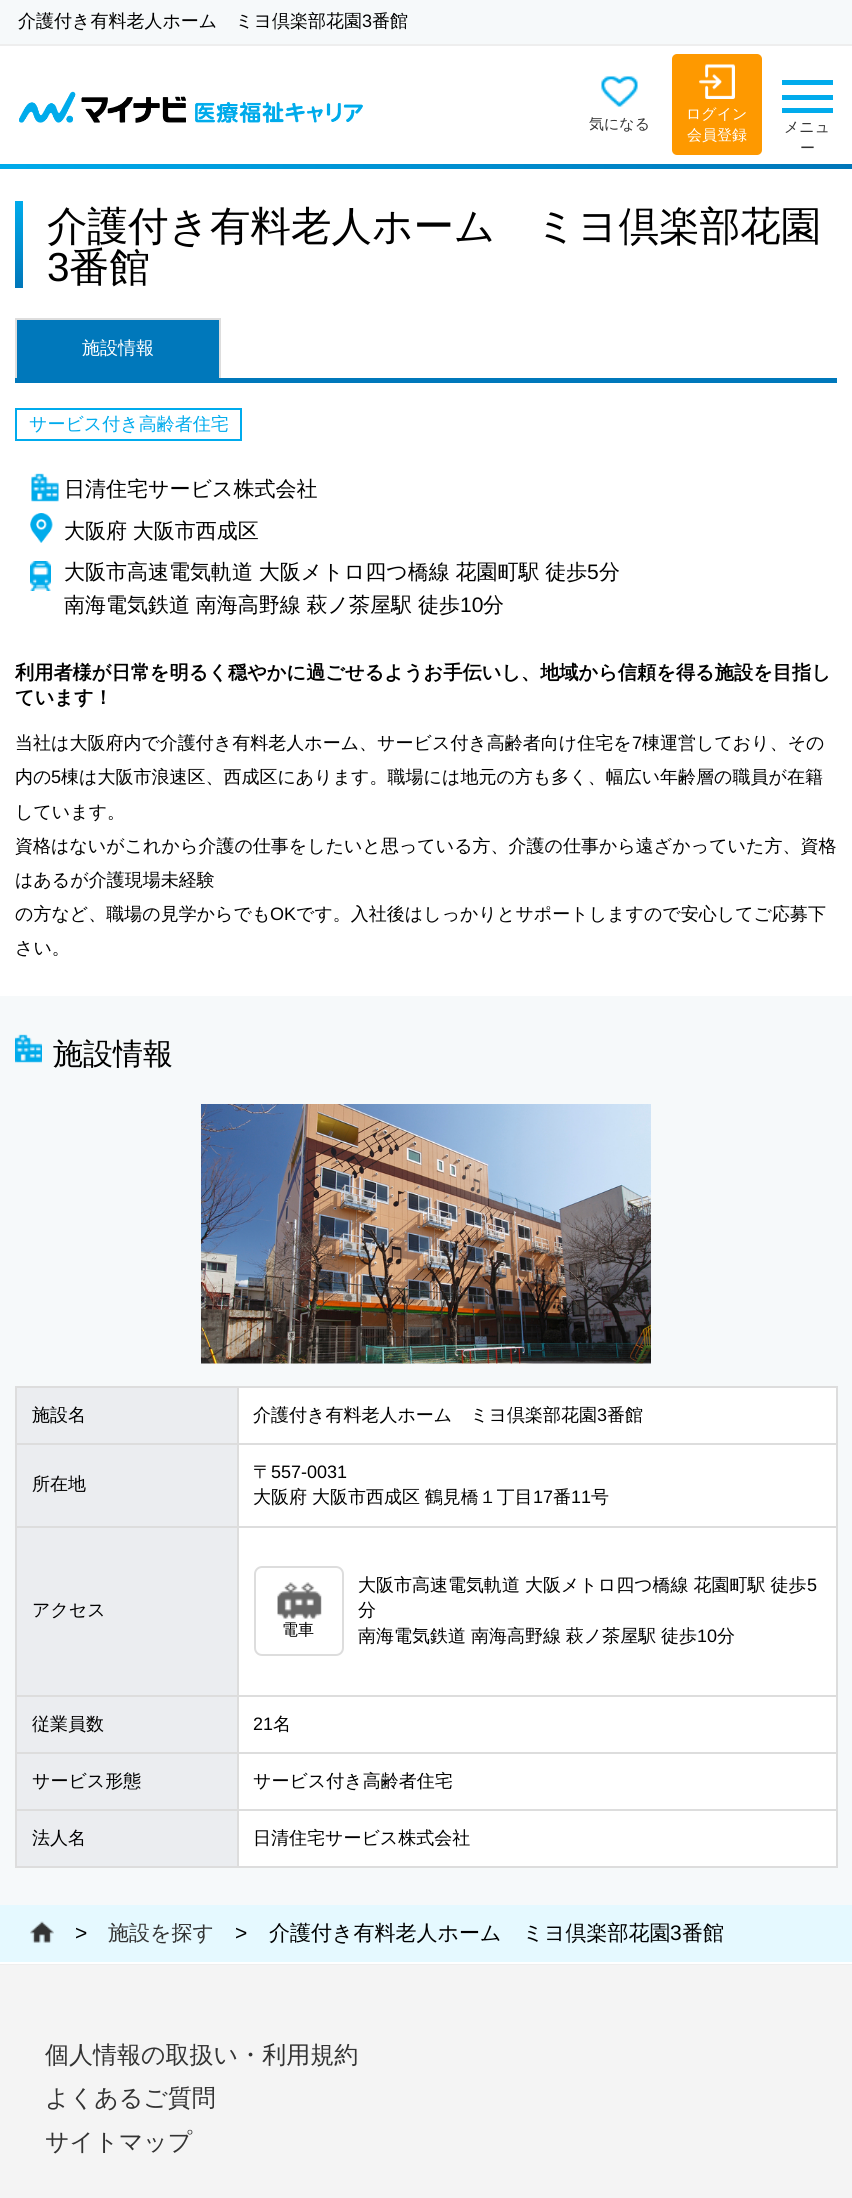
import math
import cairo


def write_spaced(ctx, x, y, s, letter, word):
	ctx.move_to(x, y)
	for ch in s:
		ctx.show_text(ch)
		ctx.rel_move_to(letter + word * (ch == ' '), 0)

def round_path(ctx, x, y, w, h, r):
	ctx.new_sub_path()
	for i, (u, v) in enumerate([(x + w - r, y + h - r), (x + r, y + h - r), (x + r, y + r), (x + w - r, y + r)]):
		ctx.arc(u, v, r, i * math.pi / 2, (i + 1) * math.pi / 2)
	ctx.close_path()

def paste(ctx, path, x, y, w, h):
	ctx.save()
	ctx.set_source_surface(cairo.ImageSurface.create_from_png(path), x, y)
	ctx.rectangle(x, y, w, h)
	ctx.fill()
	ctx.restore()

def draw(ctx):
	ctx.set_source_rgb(1, 1, 1)
	ctx.paint()
	ctx.set_source_rgb(0.961, 0.973, 0.98)
	ctx.rectangle(0, 0, 852, 44)
	ctx.fill()
	ctx.set_source_rgb(0.933, 0.933, 0.933)
	ctx.rectangle(0, 44, 852, 2)
	ctx.fill()
	ctx.select_font_face('WenQuanYi Zen Hei Medium')
	ctx.set_font_size(18)
	ctx.set_source_rgb(0, 0, 0)
	ctx.move_to(18, 27)
	ctx.show_text('介護付き有料老人ホーム　ミヨ倶楽部花園')
	ctx.select_font_face('Liberation Sans')
	ctx.move_to(362, 27)
	ctx.show_text('3')
	ctx.select_font_face('WenQuanYi Zen Hei Medium')
	ctx.move_to(372, 27)
	ctx.show_text('番館')
	paste(ctx, 'media/1.png', 19, 91, 344, 32)
	paste(ctx, 'media/2.png', 601, 76, 37, 31)
	ctx.set_font_size(15)
	ctx.set_source_rgb(0.2, 0.2, 0.2)
	ctx.move_to(589, 129)
	ctx.show_text('気になる')
	ctx.set_source_rgb(0.996, 0.6, 0)
	round_path(ctx, 672, 54, 90, 101, 5)
	ctx.fill()
	paste(ctx, 'media/3.png', 699, 64, 36, 35)
	ctx.set_source_rgb(1, 1, 1)
	ctx.move_to(686, 119)
	ctx.show_text('ログイン')
	ctx.move_to(687, 140)
	ctx.show_text('会員登録')
	ctx.set_source_rgb(0.004, 0.671, 0.922)
	ctx.rectangle(782, 80, 51, 5)
	ctx.rectangle(782, 95, 51, 5)
	ctx.rectangle(782, 108, 51, 5)
	ctx.fill()
	ctx.set_source_rgb(0.2, 0.2, 0.2)
	ctx.move_to(784, 132)
	ctx.show_text('メニュ')
	ctx.move_to(800, 153)
	ctx.show_text('ー')
	gradient = cairo.LinearGradient(0, 166, 852, 166)
	gradient.add_color_stop_rgba(0, 0, 0.671, 0.922, 1)
	gradient.add_color_stop_rgba(1, 0, 0.463, 0.725, 1)
	ctx.set_source(gradient)
	ctx.rectangle(0, 164, 852, 5)
	ctx.fill()
	gradient = cairo.LinearGradient(19, 201, 19, 288)
	gradient.add_color_stop_rgba(0, 0, 0.671, 0.922, 1)
	gradient.add_color_stop_rgba(1, 0, 0.463, 0.725, 1)
	ctx.set_source(gradient)
	ctx.rectangle(15, 201, 8, 87)
	ctx.fill()
	ctx.set_font_size(40.5)
	ctx.set_source_rgb(0, 0, 0)
	ctx.move_to(47, 240)
	ctx.show_text('介護付き有料老人ホーム　ミヨ倶楽部花園')
	ctx.select_font_face('Liberation Sans')
	ctx.move_to(47, 281)
	ctx.show_text('3')
	ctx.select_font_face('WenQuanYi Zen Hei Medium')
	ctx.move_to(69, 281)
	ctx.show_text('番館')
	ctx.set_source_rgb(0, 0.471, 0.733)
	ctx.rectangle(15, 378, 822, 5)
	ctx.rectangle(17, 320, 202, 58)
	ctx.fill()
	ctx.set_source_rgb(0.867, 0.867, 0.867)
	ctx.rectangle(15, 318, 206, 2)
	ctx.rectangle(219, 318, 2, 60)
	ctx.rectangle(15, 318, 2, 60)
	ctx.fill()
	ctx.set_font_size(18)
	ctx.set_source_rgb(1, 1, 1)
	ctx.move_to(82, 354)
	ctx.show_text('施設情報')
	ctx.rectangle(16, 409, 225, 31)
	ctx.set_source_rgb(0, 0.671, 0.929)
	ctx.stroke()
	ctx.move_to(29, 430)
	ctx.show_text('サービス付き高齢者住宅')
	paste(ctx, 'media/4.png', 31, 473, 28, 29)
	ctx.set_font_size(21)
	ctx.set_source_rgb(0, 0, 0)
	ctx.move_to(64, 496)
	ctx.show_text('日清住宅サービス株式会社')
	paste(ctx, 'media/5.png', 30, 513, 23, 30)
	write_spaced(ctx, 64, 538, '大阪府 大阪市西成区', 0, -0.5)
	paste(ctx, 'media/6.png', 30, 561, 21, 30)
	write_spaced(ctx, 64, 579, '大阪市高速電気軌道 大阪メトロ四つ橋線 花園町駅 徒歩', 0, -0.5)
	ctx.select_font_face('Liberation Sans')
	ctx.move_to(587, 579)
	ctx.show_text('5')
	ctx.select_font_face('WenQuanYi Zen Hei Medium')
	ctx.move_to(599, 579)
	ctx.show_text('分')
	write_spaced(ctx, 64, 612, '南海電気鉄道 南海高野線 萩ノ茶屋駅 徒歩', 0, -0.5)
	ctx.select_font_face('Liberation Sans')
	ctx.move_to(460, 612)
	ctx.show_text('10')
	ctx.select_font_face('WenQuanYi Zen Hei Medium')
	ctx.move_to(483, 612)
	ctx.show_text('分')
	ctx.select_font_face('WenQuanYi Zen Hei', cairo.FONT_SLANT_NORMAL, cairo.FONT_WEIGHT_BOLD)
	ctx.set_font_size(19.2)
	ctx.move_to(15, 679)
	ctx.show_text('利用者様が日常を明るく穏やかに過ごせるようお手伝いし、地域から信頼を得る施設を目指し')
	ctx.move_to(15, 704)
	ctx.show_text('ています！')
	ctx.select_font_face('WenQuanYi Zen Hei Medium')
	ctx.set_font_size(18)
	ctx.move_to(15, 749)
	ctx.show_text('当社は大阪府内で介護付き有料老人ホーム、サービス付き高齢者向け住宅を')
	ctx.select_font_face('Liberation Sans')
	ctx.move_to(632, 749)
	ctx.show_text('7')
	ctx.select_font_face('WenQuanYi Zen Hei Medium')
	ctx.move_to(642, 749)
	ctx.show_text('棟運営しており、その')
	ctx.move_to(15, 783)
	ctx.show_text('内の')
	ctx.select_font_face('Liberation Sans')
	ctx.move_to(51, 783)
	ctx.show_text('5')
	ctx.select_font_face('WenQuanYi Zen Hei Medium')
	for x, y, s in [
		(61, 783, '棟は大阪市浪速区、西成区にあります。職場には地元の方も多く、幅広い年齢層の職員が在籍'),
		(15, 818, 'しています。'),
		(15, 852, '資格はないがこれから介護の仕事をしたいと思っている方、介護の仕事から遠ざかっていた方、資格'),
		(15, 886, 'はあるが介護現場未経験'),
		(15, 920, 'の方など、職場の見学からでも'),
	]:
		ctx.move_to(x, y)
		ctx.show_text(s)
	ctx.select_font_face('Liberation Sans')
	ctx.move_to(270, 920)
	ctx.show_text('OK')
	ctx.select_font_face('WenQuanYi Zen Hei Medium')
	ctx.move_to(296, 920)
	ctx.show_text('です。入社後はしっかりとサポートしますので安心してご応募下')
	ctx.move_to(15, 954)
	ctx.show_text('さい。')
	ctx.set_source_rgb(0.961, 0.973, 0.98)
	ctx.rectangle(0, 996, 852, 909)
	ctx.fill()
	paste(ctx, 'media/7.png', 15, 1034, 27, 29)
	ctx.set_font_size(30)
	ctx.set_source_rgb(0, 0, 0)
	ctx.move_to(53, 1064)
	ctx.show_text('施設情報')
	paste(ctx, 'media/8.png', 201, 1104, 450, 260)
	ctx.set_source_rgb(0.918, 0.929, 0.941)
	ctx.rectangle(17, 1388, 220, 55)
	ctx.fill()
	ctx.set_source_rgb(0.867, 0.867, 0.867)
	ctx.rectangle(237, 1386, 600, 2)
	ctx.rectangle(237, 1443, 600, 2)
	ctx.rectangle(237, 1526, 600, 2)
	ctx.rectangle(237, 1695, 600, 2)
	ctx.rectangle(237, 1752, 600, 2)
	ctx.rectangle(237, 1809, 600, 2)
	ctx.rectangle(836, 1809, 2, 59)
	ctx.rectangle(237, 1866, 600, 2)
	ctx.rectangle(237, 1809, 2, 59)
	ctx.rectangle(15, 1809, 224, 2)
	ctx.rectangle(237, 1752, 2, 59)
	ctx.rectangle(15, 1752, 224, 2)
	ctx.rectangle(237, 1695, 2, 59)
	ctx.rectangle(15, 1695, 224, 2)
	ctx.rectangle(237, 1526, 2, 171)
	ctx.rectangle(15, 1526, 224, 2)
	ctx.rectangle(237, 1443, 2, 84)
	ctx.rectangle(15, 1443, 224, 2)
	ctx.rectangle(237, 1386, 2, 59)
	ctx.rectangle(15, 1386, 224, 2)
	ctx.rectangle(15, 1866, 224, 2)
	ctx.rectangle(15, 1809, 2, 59)
	ctx.rectangle(15, 1752, 2, 59)
	ctx.rectangle(15, 1695, 2, 59)
	ctx.rectangle(15, 1526, 2, 171)
	ctx.rectangle(15, 1443, 2, 84)
	ctx.rectangle(15, 1386, 2, 59)
	ctx.fill()
	ctx.set_font_size(18)
	ctx.set_source_rgb(0, 0, 0)
	ctx.move_to(32, 1421)
	ctx.show_text('施設名')
	ctx.set_source_rgb(1, 1, 1)
	ctx.rectangle(239, 1388, 597, 55)
	ctx.fill()
	ctx.set_source_rgb(0.867, 0.867, 0.867)
	ctx.rectangle(836, 1752, 2, 59)
	ctx.rectangle(836, 1695, 2, 59)
	ctx.rectangle(836, 1526, 2, 171)
	ctx.rectangle(836, 1443, 2, 84)
	ctx.rectangle(836, 1386, 2, 59)
	ctx.fill()
	ctx.set_source_rgb(0, 0, 0)
	ctx.move_to(253, 1421)
	ctx.show_text('介護付き有料老人ホーム　ミヨ倶楽部花園')
	ctx.select_font_face('Liberation Sans')
	ctx.move_to(597, 1421)
	ctx.show_text('3')
	ctx.select_font_face('WenQuanYi Zen Hei Medium')
	ctx.move_to(607, 1421)
	ctx.show_text('番館')
	ctx.set_source_rgb(0.918, 0.929, 0.941)
	ctx.rectangle(17, 1445, 220, 81)
	ctx.fill()
	ctx.set_source_rgb(0, 0, 0)
	ctx.move_to(32, 1490)
	ctx.show_text('所在地')
	ctx.set_source_rgb(1, 1, 1)
	ctx.rectangle(239, 1445, 597, 81)
	ctx.fill()
	ctx.set_source_rgb(0, 0, 0)
	ctx.move_to(253, 1478)
	ctx.show_text('〒')
	ctx.select_font_face('Liberation Sans')
	ctx.move_to(271, 1478)
	ctx.show_text('557-0031')
	ctx.select_font_face('WenQuanYi Zen Hei Medium')
	write_spaced(ctx, 253, 1503, '大阪府 大阪市西成区 鶴見橋１丁目', 0, -0.5)
	ctx.select_font_face('Liberation Sans')
	ctx.move_to(533, 1503)
	ctx.show_text('17')
	ctx.select_font_face('WenQuanYi Zen Hei Medium')
	ctx.move_to(553, 1503)
	ctx.show_text('番')
	ctx.select_font_face('Liberation Sans')
	ctx.move_to(571, 1503)
	ctx.show_text('11')
	ctx.select_font_face('WenQuanYi Zen Hei Medium')
	ctx.move_to(591, 1503)
	ctx.show_text('号')
	ctx.set_source_rgb(0.918, 0.929, 0.941)
	ctx.rectangle(17, 1528, 220, 167)
	ctx.fill()
	ctx.set_source_rgb(0, 0, 0)
	ctx.move_to(32, 1616)
	ctx.show_text('アクセス')
	ctx.set_source_rgb(1, 1, 1)
	ctx.rectangle(239, 1528, 597, 167)
	ctx.fill()
	round_path(ctx, 255, 1567, 88, 88, 7)
	ctx.set_source_rgb(0.867, 0.867, 0.867)
	ctx.stroke()
	paste(ctx, 'media/9.png', 277, 1582, 45, 37)
	ctx.set_font_size(16)
	ctx.set_source_rgb(0, 0, 0)
	ctx.move_to(282, 1635)
	ctx.show_text('電車')
	ctx.set_font_size(18)
	write_spaced(ctx, 358, 1591, '大阪市高速電気軌道 大阪メトロ四つ橋線 花園町駅 徒歩', 0, -0.5)
	ctx.select_font_face('Liberation Sans')
	ctx.move_to(807, 1591)
	ctx.show_text('5')
	ctx.select_font_face('WenQuanYi Zen Hei Medium')
	ctx.move_to(358, 1616)
	ctx.show_text('分')
	write_spaced(ctx, 358, 1642, '南海電気鉄道 南海高野線 萩ノ茶屋駅 徒歩', 0, -0.5)
	ctx.select_font_face('Liberation Sans')
	ctx.move_to(697, 1642)
	ctx.show_text('10')
	ctx.select_font_face('WenQuanYi Zen Hei Medium')
	ctx.move_to(717, 1642)
	ctx.show_text('分')
	ctx.set_source_rgb(0.918, 0.929, 0.941)
	ctx.rectangle(17, 1697, 220, 55)
	ctx.fill()
	ctx.set_source_rgb(0, 0, 0)
	ctx.move_to(32, 1730)
	ctx.show_text('従業員数')
	ctx.set_source_rgb(1, 1, 1)
	ctx.rectangle(239, 1697, 597, 55)
	ctx.fill()
	ctx.select_font_face('Liberation Sans')
	ctx.set_source_rgb(0, 0, 0)
	ctx.move_to(253, 1730)
	ctx.show_text('21')
	ctx.select_font_face('WenQuanYi Zen Hei Medium')
	ctx.move_to(273, 1730)
	ctx.show_text('名')
	ctx.set_source_rgb(0.918, 0.929, 0.941)
	ctx.rectangle(17, 1754, 220, 55)
	ctx.fill()
	ctx.set_source_rgb(0, 0, 0)
	ctx.move_to(32, 1787)
	ctx.show_text('サービス形態')
	ctx.set_source_rgb(1, 1, 1)
	ctx.rectangle(239, 1754, 597, 55)
	ctx.fill()
	ctx.set_source_rgb(0, 0, 0)
	ctx.move_to(253, 1787)
	ctx.show_text('サービス付き高齢者住宅')
	ctx.set_source_rgb(0.918, 0.929, 0.941)
	ctx.rectangle(17, 1811, 220, 55)
	ctx.fill()
	ctx.set_source_rgb(0, 0, 0)
	ctx.move_to(32, 1844)
	ctx.show_text('法人名')
	ctx.set_source_rgb(1, 1, 1)
	ctx.rectangle(239, 1811, 597, 55)
	ctx.fill()
	ctx.set_source_rgb(0, 0, 0)
	ctx.move_to(253, 1844)
	ctx.show_text('日清住宅サービス株式会社')
	ctx.set_source_rgb(0.898, 0.976, 1)
	ctx.rectangle(0, 1905, 852, 57)
	ctx.fill()
	paste(ctx, 'media/10.png', 30, 1921, 24, 22)
	ctx.select_font_face('Liberation Sans')
	ctx.set_font_size(21)
	ctx.set_source_rgb(0, 0, 0)
	ctx.move_to(75, 1940)
	ctx.show_text('>')
	ctx.select_font_face('WenQuanYi Zen Hei Medium')
	ctx.set_source_rgb(0.2, 0.2, 0.2)
	ctx.move_to(108, 1940)
	ctx.show_text('施設を探す')
	ctx.select_font_face('Liberation Sans')
	ctx.set_source_rgb(0, 0, 0)
	ctx.move_to(235, 1940)
	ctx.show_text('>')
	ctx.select_font_face('WenQuanYi Zen Hei Medium')
	ctx.move_to(269, 1940)
	ctx.show_text('介護付き有料老人ホーム　ミヨ倶楽部花園')
	ctx.select_font_face('Liberation Sans')
	ctx.move_to(670, 1940)
	ctx.show_text('3')
	ctx.select_font_face('WenQuanYi Zen Hei Medium')
	ctx.move_to(682, 1940)
	ctx.show_text('番館')
	ctx.set_source_rgb(0.933, 0.933, 0.933)
	ctx.rectangle(0, 1964, 852, 1)
	ctx.fill()
	ctx.set_source_rgb(0.957, 0.957, 0.957)
	ctx.rectangle(0, 1965, 852, 233)
	ctx.fill()
	ctx.set_font_size(24)
	ctx.set_source_rgb(0.2, 0.2, 0.2)
	for x, y, s in [
		(45, 2063, '個人情報の取扱い・利用規約'),
		(45, 2106, 'よくあるご質問'),
		(45, 2150, 'サイトマップ'),
	]:
		ctx.move_to(x, y)
		ctx.show_text(s)


surface = cairo.ImageSurface(cairo.FORMAT_RGB24, 852, 2198)
ctx = cairo.Context(surface)
options = cairo.FontOptions()
options.set_hint_metrics(cairo.HINT_METRICS_OFF)
options.set_hint_style(cairo.HINT_STYLE_NONE)
ctx.set_font_options(options)
ctx.set_miter_limit(4)
draw(ctx)
surface.write_to_png('image.png')
